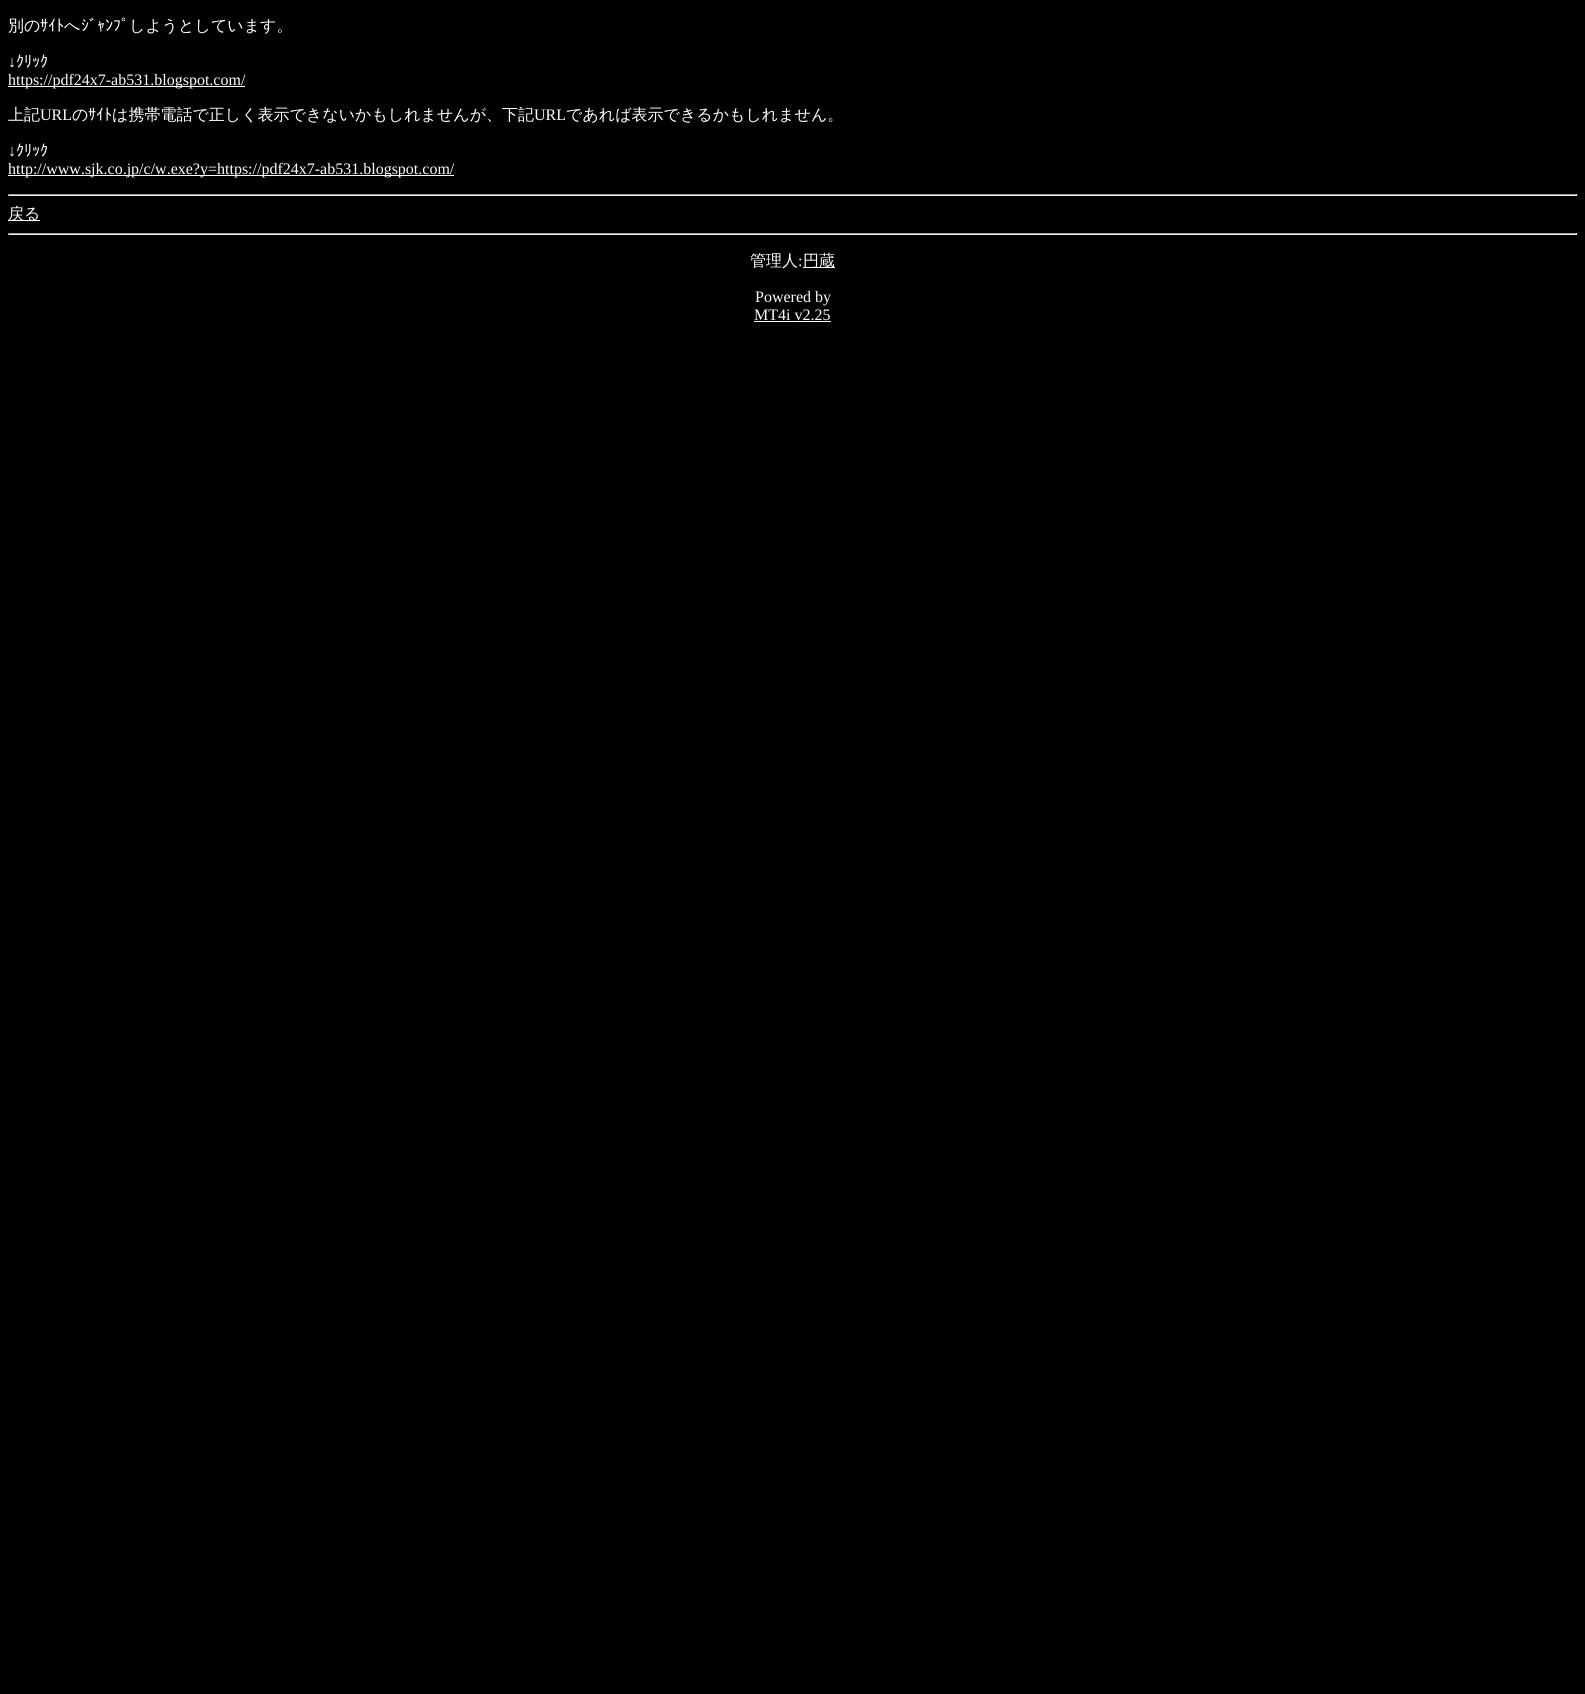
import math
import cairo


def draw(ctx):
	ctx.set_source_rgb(0, 0, 0)
	ctx.paint()
	ctx.select_font_face('WenQuanYi Zen Hei Medium')
	ctx.set_font_size(16)
	ctx.set_source_rgb(1, 1, 1)
	ctx.move_to(8, 31)
	ctx.show_text('別の')
	ctx.select_font_face('IPAGothic')
	ctx.move_to(40, 31)
	ctx.show_text('ｻｲﾄ')
	ctx.select_font_face('WenQuanYi Zen Hei Medium')
	ctx.move_to(64, 31)
	ctx.show_text('へ')
	ctx.select_font_face('IPAGothic')
	ctx.move_to(81, 31)
	ctx.show_text('ｼﾞｬﾝﾌﾟ')
	ctx.select_font_face('WenQuanYi Zen Hei Medium')
	ctx.move_to(129, 31)
	ctx.show_text('しようとしています。')
	ctx.select_font_face('Liberation Serif')
	ctx.move_to(8, 67)
	ctx.show_text('↓')
	ctx.select_font_face('IPAGothic')
	ctx.move_to(16, 67)
	ctx.show_text('ｸﾘｯｸ')
	ctx.rectangle(8, 86, 237, 1)
	ctx.fill()
	ctx.select_font_face('Liberation Serif')
	ctx.move_to(8, 85)
	ctx.show_text('https://pdf24x7-ab531.blogspot.com/')
	ctx.select_font_face('WenQuanYi Zen Hei Medium')
	ctx.move_to(8, 120)
	ctx.show_text('上記')
	ctx.select_font_face('Liberation Serif')
	ctx.move_to(40, 120)
	ctx.show_text('URL')
	ctx.select_font_face('WenQuanYi Zen Hei Medium')
	ctx.move_to(72, 120)
	ctx.show_text('の')
	ctx.select_font_face('IPAGothic')
	ctx.move_to(88, 120)
	ctx.show_text('ｻｲﾄ')
	ctx.select_font_face('WenQuanYi Zen Hei Medium')
	ctx.move_to(112, 120)
	ctx.show_text('は携帯電話で正しく表示できないかもしれませんが、下記')
	ctx.select_font_face('Liberation Serif')
	ctx.move_to(534, 120)
	ctx.show_text('URL')
	ctx.select_font_face('WenQuanYi Zen Hei Medium')
	ctx.move_to(566, 120)
	ctx.show_text('であれば表示できるかもしれません。')
	ctx.select_font_face('Liberation Serif')
	ctx.move_to(8, 156)
	ctx.show_text('↓')
	ctx.select_font_face('IPAGothic')
	ctx.move_to(16, 156)
	ctx.show_text('ｸﾘｯｸ')
	ctx.rectangle(8, 175, 446, 1)
	ctx.fill()
	ctx.select_font_face('Liberation Serif')
	ctx.move_to(8, 174)
	ctx.show_text('http://www.sjk.co.jp/c/w.exe?y=https://pdf24x7-ab531.blogspot.com/')
	ctx.set_source_rgb(0.624, 0.624, 0.624)
	ctx.rectangle(8, 194, 1569, 1)
	ctx.fill()
	ctx.set_source_rgb(0.933, 0.933, 0.933)
	ctx.rectangle(1576, 194, 1, 2)
	ctx.rectangle(8, 195, 1569, 1)
	ctx.fill()
	ctx.set_source_rgb(0.624, 0.624, 0.624)
	ctx.rectangle(8, 194, 1, 2)
	ctx.fill()
	ctx.set_source_rgb(1, 1, 1)
	ctx.rectangle(8, 220, 32, 1)
	ctx.fill()
	ctx.select_font_face('WenQuanYi Zen Hei Medium')
	ctx.move_to(8, 219)
	ctx.show_text('戻る')
	ctx.set_source_rgb(0.624, 0.624, 0.624)
	ctx.rectangle(8, 233, 1569, 1)
	ctx.fill()
	ctx.set_source_rgb(0.933, 0.933, 0.933)
	ctx.rectangle(1576, 233, 1, 2)
	ctx.rectangle(8, 234, 1569, 1)
	ctx.fill()
	ctx.set_source_rgb(0.624, 0.624, 0.624)
	ctx.rectangle(8, 233, 1, 2)
	ctx.fill()
	ctx.set_source_rgb(1, 1, 1)
	ctx.move_to(750, 266)
	ctx.show_text('管理人')
	ctx.select_font_face('Liberation Serif')
	ctx.move_to(798, 266)
	ctx.show_text(':')
	ctx.rectangle(803, 267, 32, 1)
	ctx.fill()
	ctx.select_font_face('WenQuanYi Zen Hei Medium')
	ctx.move_to(803, 266)
	ctx.show_text('円蔵')
	ctx.select_font_face('Liberation Serif')
	ctx.move_to(755, 302)
	ctx.show_text('Powered by')
	ctx.move_to(754, 320)
	ctx.show_text('MT4i v2.25')
	ctx.rectangle(754, 321, 77, 1)
	ctx.fill()


surface = cairo.ImageSurface(cairo.FORMAT_RGB24, 1585, 1694)
ctx = cairo.Context(surface)
options = cairo.FontOptions()
options.set_hint_metrics(cairo.HINT_METRICS_OFF)
options.set_hint_style(cairo.HINT_STYLE_NONE)
ctx.set_font_options(options)
ctx.set_miter_limit(4)
draw(ctx)
surface.write_to_png('image.png')
